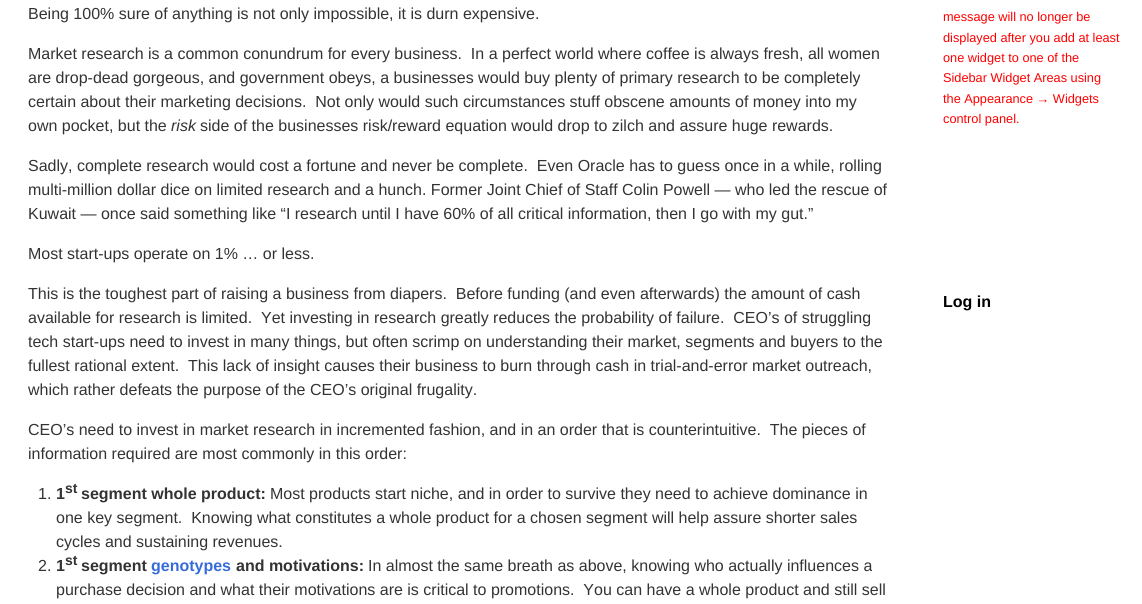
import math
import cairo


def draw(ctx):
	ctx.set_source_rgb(1, 1, 1)
	ctx.paint()
	ctx.select_font_face('Liberation Sans')
	ctx.set_font_size(16)
	ctx.set_source_rgb(0.2, 0.2, 0.2)
	for x, y, s in [
		(28, 19, 'Being 100% sure of anything is not only impossible, it is durn expensive.'),
		(28, 59, 'Market research is a common conundrum for every business.  In a perfect world where coffee is always fresh, all women'),
		(28, 83, 'are drop-dead gorgeous, and government obeys, a businesses would buy plenty of primary research to be completely'),
		(28, 107, 'certain about their marketing decisions.  Not only would such circumstances stuff obscene amounts of money into my'),
		(28, 131, 'own pocket, but the'),
	]:
		ctx.move_to(x, y)
		ctx.show_text(s)
	ctx.select_font_face('Liberation Sans', cairo.FONT_SLANT_ITALIC)
	ctx.move_to(171, 131)
	ctx.show_text('risk')
	ctx.select_font_face('Liberation Sans')
	for x, y, s in [
		(200, 131, 'side of the businesses risk/reward equation would drop to zilch and assure huge rewards.'),
		(28, 171, 'Sadly, complete research would cost a fortune and never be complete.  Even Oracle has to guess once in a while, rolling'),
		(28, 195, 'multi-million dollar dice on limited research and a hunch. Former Joint Chief of Staff Colin Powell — who led the rescue of'),
		(28, 219, 'Kuwait — once said something like “I research until I have 60% of all critical information, then I go with my gut.”'),
		(28, 259, 'Most start-ups operate on 1% … or less.'),
		(28, 299, 'This is the toughest part of raising a business from diapers.  Before funding (and even afterwards) the amount of cash'),
		(28, 323, 'available for research is limited.  Yet investing in research greatly reduces the probability of failure.  CEO’s of struggling'),
		(28, 347, 'tech start-ups need to invest in many things, but often scrimp on understanding their market, segments and buyers to the'),
		(28, 371, 'fullest rational extent.  This lack of insight causes their business to burn through cash in trial-and-error market outreach,'),
		(28, 395, 'which rather defeats the purpose of the CEO’s original frugality.'),
		(28, 435, 'CEO’s need to invest in market research in incremented fashion, and in an order that is counterintuitive.  The pieces of'),
		(28, 459, 'information required are most commonly in this order:'),
		(38, 499, '1.'),
	]:
		ctx.move_to(x, y)
		ctx.show_text(s)
	ctx.select_font_face('Liberation Sans', cairo.FONT_SLANT_NORMAL, cairo.FONT_WEIGHT_BOLD)
	ctx.move_to(56, 499)
	ctx.show_text('1')
	ctx.set_font_size(14)
	ctx.move_to(65, 493)
	ctx.show_text('st')
	ctx.set_font_size(16)
	ctx.move_to(81, 499)
	ctx.show_text('segment whole product:')
	ctx.select_font_face('Liberation Sans')
	for x, y, s in [
		(270, 499, 'Most products start niche, and in order to survive they need to achieve dominance in'),
		(56, 523, 'one key segment.  Knowing what constitutes a whole product for a chosen segment will help assure shorter sales'),
		(56, 547, 'cycles and sustaining revenues.'),
		(38, 571, '2.'),
	]:
		ctx.move_to(x, y)
		ctx.show_text(s)
	ctx.select_font_face('Liberation Sans', cairo.FONT_SLANT_NORMAL, cairo.FONT_WEIGHT_BOLD)
	ctx.move_to(56, 571)
	ctx.show_text('1')
	ctx.set_font_size(14)
	ctx.move_to(65, 565)
	ctx.show_text('st')
	ctx.set_font_size(16)
	ctx.move_to(81, 571)
	ctx.show_text('segment')
	ctx.set_source_rgb(0.212, 0.424, 0.851)
	ctx.move_to(151, 571)
	ctx.show_text('genotypes')
	ctx.set_source_rgb(0.2, 0.2, 0.2)
	ctx.move_to(236, 571)
	ctx.show_text('and motivations:')
	ctx.select_font_face('Liberation Sans')
	ctx.move_to(368, 571)
	ctx.show_text('In almost the same breath as above, knowing who actually influences a')
	ctx.move_to(56, 595)
	ctx.show_text('purchase decision and what their motivations are is critical to promotions.  You can have a whole product and still sell')
	ctx.set_font_size(12.75)
	ctx.set_source_rgb(1, 0, 0)
	for x, y, s in [
		(943, 21, 'message will no longer be'),
		(943, 42, 'displayed after you add at least'),
		(943, 62, 'one widget to one of the'),
		(943, 82, 'Sidebar Widget Areas using'),
		(943, 103, 'the Appearance → Widgets'),
		(943, 123, 'control panel.'),
	]:
		ctx.move_to(x, y)
		ctx.show_text(s)
	ctx.select_font_face('Liberation Sans', cairo.FONT_SLANT_NORMAL, cairo.FONT_WEIGHT_BOLD)
	ctx.set_font_size(16)
	ctx.set_source_rgb(0, 0, 0)
	ctx.move_to(943, 307)
	ctx.show_text('Log in')


surface = cairo.ImageSurface(cairo.FORMAT_RGB24, 1142, 604)
ctx = cairo.Context(surface)
options = cairo.FontOptions()
options.set_hint_metrics(cairo.HINT_METRICS_OFF)
options.set_hint_style(cairo.HINT_STYLE_NONE)
ctx.set_font_options(options)
ctx.set_miter_limit(4)
draw(ctx)
surface.write_to_png('image.png')
